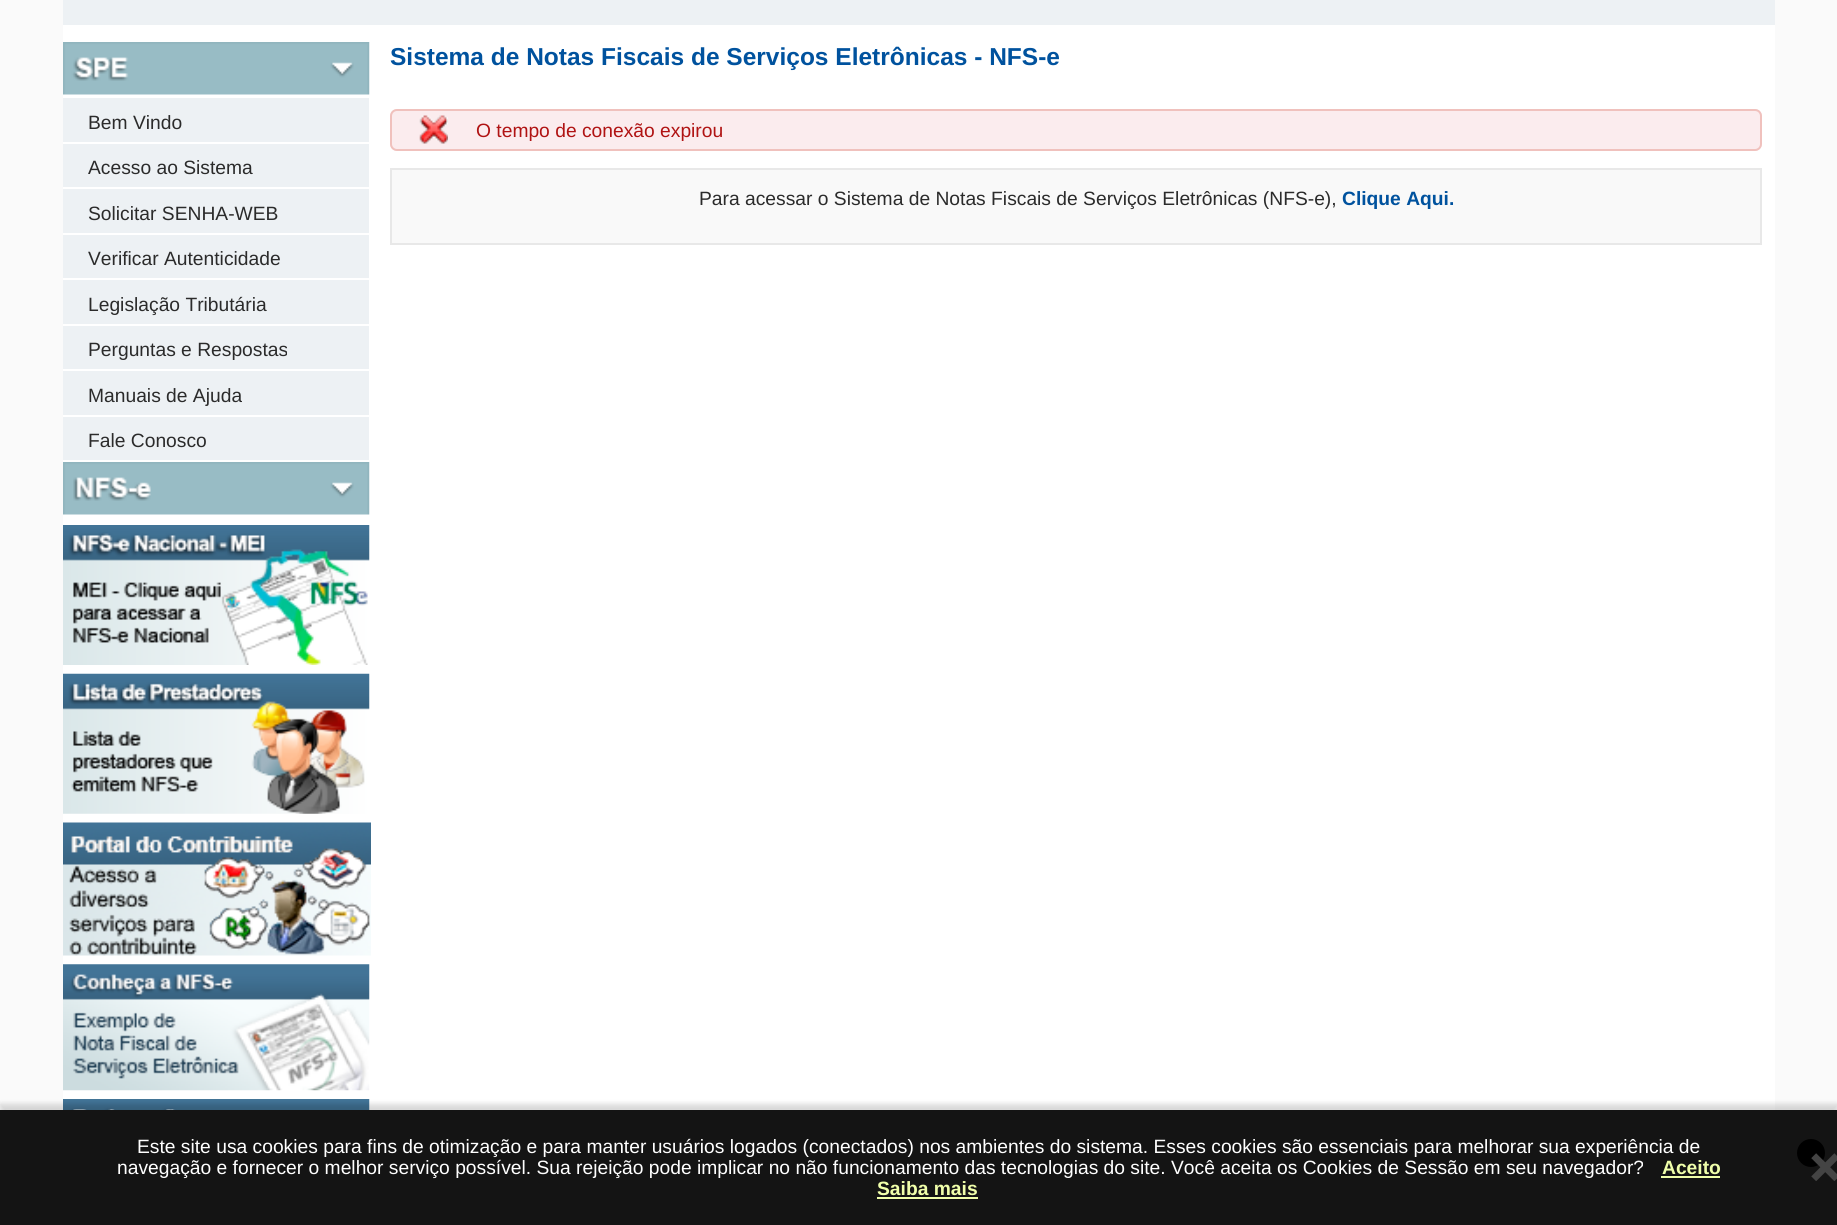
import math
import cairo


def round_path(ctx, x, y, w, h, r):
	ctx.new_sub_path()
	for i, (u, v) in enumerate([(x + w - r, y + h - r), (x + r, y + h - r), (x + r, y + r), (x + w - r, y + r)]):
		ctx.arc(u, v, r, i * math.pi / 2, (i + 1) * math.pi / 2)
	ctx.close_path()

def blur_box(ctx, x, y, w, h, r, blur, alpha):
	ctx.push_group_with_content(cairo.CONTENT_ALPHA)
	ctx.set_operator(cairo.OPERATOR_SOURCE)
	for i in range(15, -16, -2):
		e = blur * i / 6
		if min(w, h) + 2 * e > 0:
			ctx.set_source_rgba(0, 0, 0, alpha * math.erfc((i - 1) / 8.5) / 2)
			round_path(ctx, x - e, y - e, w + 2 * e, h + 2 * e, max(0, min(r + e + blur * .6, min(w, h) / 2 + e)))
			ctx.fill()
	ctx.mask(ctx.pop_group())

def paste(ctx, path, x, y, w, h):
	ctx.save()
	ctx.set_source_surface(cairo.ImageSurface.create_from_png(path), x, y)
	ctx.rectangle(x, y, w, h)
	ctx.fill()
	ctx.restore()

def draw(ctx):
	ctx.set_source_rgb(0.98, 0.98, 0.98)
	ctx.paint()
	ctx.set_source_rgb(1, 1, 1)
	ctx.rectangle(63, 25, 1712, 1085)
	ctx.fill()
	ctx.set_source_rgb(0.929, 0.945, 0.957)
	ctx.rectangle(63, 0, 1712, 25)
	ctx.fill()
	paste(ctx, 'media/1.png', 63, 42, 307, 53)
	ctx.rectangle(63, 98, 306, 362)
	ctx.fill()
	ctx.set_source_rgb(1, 1, 1)
	ctx.rectangle(63, 142, 306, 2)
	ctx.fill()
	ctx.select_font_face('Liberation Sans')
	ctx.set_font_size(19.25)
	ctx.set_source_rgb(0.169, 0.169, 0.169)
	ctx.move_to(88, 129)
	ctx.show_text('Bem Vindo')
	ctx.set_source_rgb(1, 1, 1)
	ctx.rectangle(63, 187, 306, 2)
	ctx.fill()
	ctx.set_source_rgb(0.169, 0.169, 0.169)
	ctx.move_to(88, 174)
	ctx.show_text('Acesso ao Sistema')
	ctx.set_source_rgb(1, 1, 1)
	ctx.rectangle(63, 233, 306, 2)
	ctx.fill()
	ctx.set_source_rgb(0.169, 0.169, 0.169)
	ctx.move_to(88, 220)
	ctx.show_text('Solicitar SENHA-WEB')
	ctx.set_source_rgb(1, 1, 1)
	ctx.rectangle(63, 278, 306, 2)
	ctx.fill()
	ctx.set_source_rgb(0.169, 0.169, 0.169)
	ctx.move_to(88, 265)
	ctx.show_text('Verificar Autenticidade')
	ctx.set_source_rgb(1, 1, 1)
	ctx.rectangle(63, 324, 306, 2)
	ctx.fill()
	ctx.set_source_rgb(0.169, 0.169, 0.169)
	ctx.move_to(88, 311)
	ctx.show_text('Legislação Tributária')
	ctx.set_source_rgb(1, 1, 1)
	ctx.rectangle(63, 369, 306, 2)
	ctx.fill()
	ctx.set_source_rgb(0.169, 0.169, 0.169)
	ctx.move_to(88, 356)
	ctx.show_text('Perguntas e Respostas')
	ctx.set_source_rgb(1, 1, 1)
	ctx.rectangle(63, 415, 306, 2)
	ctx.fill()
	ctx.set_source_rgb(0.169, 0.169, 0.169)
	ctx.move_to(88, 402)
	ctx.show_text('Manuais de Ajuda')
	ctx.move_to(88, 447)
	ctx.show_text('Fale Conosco')
	paste(ctx, 'media/2.png', 63, 462, 307, 53)
	paste(ctx, 'media/3.png', 63, 525, 307, 140)
	paste(ctx, 'media/4.png', 63, 673, 307, 141)
	paste(ctx, 'media/5.png', 63, 822, 308, 134)
	paste(ctx, 'media/6.png', 63, 964, 307, 127)
	paste(ctx, 'media/7.png', 63, 1099, 307, 11)
	ctx.select_font_face('Liberation Sans', cairo.FONT_SLANT_NORMAL, cairo.FONT_WEIGHT_BOLD)
	ctx.set_font_size(24.5)
	ctx.set_source_rgb(0, 0.322, 0.62)
	ctx.move_to(390, 65)
	ctx.show_text('Sistema de Notas Fiscais de Serviços Eletrônicas - NFS-e')
	ctx.set_source_rgb(0.984, 0.925, 0.933)
	round_path(ctx, 390, 109, 1372, 42, 7)
	ctx.fill()
	paste(ctx, 'media/8.png', 419, 115, 29, 29)
	round_path(ctx, 391, 110, 1370, 40, 6)
	ctx.set_source_rgb(0.941, 0.757, 0.741)
	ctx.stroke()
	ctx.select_font_face('Liberation Sans')
	ctx.set_font_size(19.25)
	ctx.set_source_rgb(0.69, 0.075, 0.075)
	ctx.move_to(476, 137)
	ctx.show_text('O tempo de conexão expirou')
	ctx.set_source_rgb(0.976, 0.976, 0.976)
	ctx.rectangle(391, 169, 1370, 75)
	ctx.fill_preserve()
	ctx.set_source_rgb(0.91, 0.91, 0.91)
	ctx.stroke()
	ctx.set_source_rgb(0.169, 0.169, 0.169)
	ctx.move_to(699, 205)
	ctx.show_text('Para acessar o Sistema de Notas Fiscais de Serviços Eletrônicas (NFS-e),')
	ctx.select_font_face('Liberation Sans', cairo.FONT_SLANT_NORMAL, cairo.FONT_WEIGHT_BOLD)
	ctx.set_source_rgb(0, 0.322, 0.62)
	ctx.move_to(1342, 205)
	ctx.show_text('Clique Aqui.')
	ctx.set_source_rgb(0, 0, 0)
	blur_box(ctx, 0, 1104, 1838, 116, 0, 2.5, 0.15)
	ctx.set_source_rgb(0.082, 0.082, 0.082)
	ctx.rectangle(0, 1110, 1837, 115)
	ctx.fill()
	ctx.select_font_face('Liberation Sans')
	ctx.set_source_rgb(1, 1, 1)
	ctx.move_to(137, 1153)
	ctx.show_text('Este site usa cookies para fins de otimização e para manter usuários logados (conectados) nos ambientes do sistema. Esses cookies são essenciais para melhorar sua experiência de')
	ctx.move_to(117, 1174)
	ctx.show_text('navegação e fornecer o melhor serviço possível. Sua rejeição pode implicar no não funcionamento das tecnologias do site. Você aceita os Cookies de Sessão em seu navegador?')
	ctx.select_font_face('Liberation Sans', cairo.FONT_SLANT_NORMAL, cairo.FONT_WEIGHT_BOLD)
	ctx.set_source_rgb(0.941, 1, 0.667)
	ctx.move_to(1662, 1174)
	ctx.show_text('Aceito')
	ctx.rectangle(1661, 1176, 59, 2)
	ctx.fill()
	ctx.move_to(877, 1195)
	ctx.show_text('Saiba mais')
	ctx.rectangle(877, 1197, 101, 2)
	ctx.fill()
	ctx.set_source_rgb(0, 0, 0)
	ctx.arc(1811, 1153, 14, 0, 2 * math.pi)
	ctx.fill()
	paste(ctx, 'media/9.png', 1811, 1153, 26, 28)


surface = cairo.ImageSurface(cairo.FORMAT_RGB24, 1837, 1225)
ctx = cairo.Context(surface)
options = cairo.FontOptions()
options.set_hint_metrics(cairo.HINT_METRICS_OFF)
options.set_hint_style(cairo.HINT_STYLE_NONE)
ctx.set_font_options(options)
ctx.set_miter_limit(4)
draw(ctx)
surface.write_to_png('image.png')
